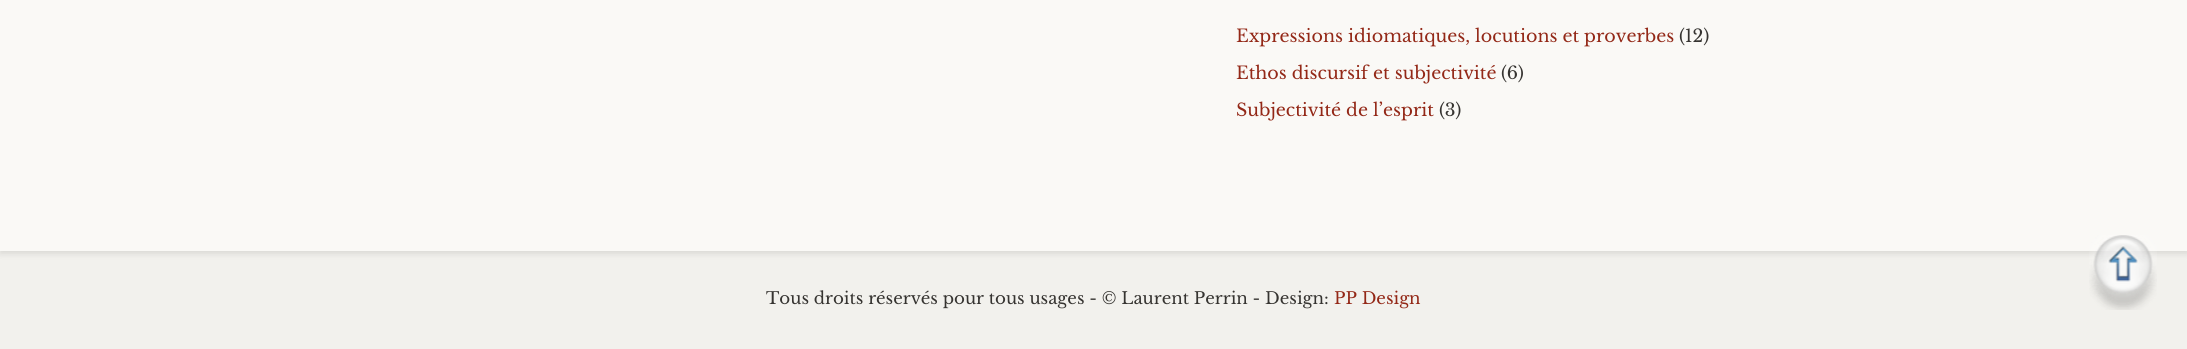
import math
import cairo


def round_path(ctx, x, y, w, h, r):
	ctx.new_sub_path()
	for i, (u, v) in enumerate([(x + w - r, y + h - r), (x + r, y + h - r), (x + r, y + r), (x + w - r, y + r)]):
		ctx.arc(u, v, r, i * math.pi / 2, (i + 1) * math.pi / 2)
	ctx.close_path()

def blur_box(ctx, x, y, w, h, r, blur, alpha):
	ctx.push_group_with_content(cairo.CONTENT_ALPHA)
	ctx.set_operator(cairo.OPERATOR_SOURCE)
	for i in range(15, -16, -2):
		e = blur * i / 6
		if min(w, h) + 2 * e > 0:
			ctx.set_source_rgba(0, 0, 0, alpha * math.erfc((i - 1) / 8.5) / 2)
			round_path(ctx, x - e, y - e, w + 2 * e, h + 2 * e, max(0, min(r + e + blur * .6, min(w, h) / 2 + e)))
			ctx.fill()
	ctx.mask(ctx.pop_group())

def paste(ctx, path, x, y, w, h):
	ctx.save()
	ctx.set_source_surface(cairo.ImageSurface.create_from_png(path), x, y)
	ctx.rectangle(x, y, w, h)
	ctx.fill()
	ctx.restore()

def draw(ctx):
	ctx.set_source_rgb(0.949, 0.945, 0.929)
	ctx.paint()
	ctx.set_source_rgb(0, 0, 0)
	blur_box(ctx, 0, -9, 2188, 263, 0, 3, 0.1)
	ctx.set_source_rgb(0.98, 0.976, 0.961)
	ctx.rectangle(0, 0, 2187, 251)
	ctx.fill()
	ctx.select_font_face('Libre Baskerville')
	ctx.set_font_size(17.5)
	ctx.set_source_rgb(0.576, 0.157, 0.09)
	ctx.move_to(1236, 42)
	ctx.show_text('Expressions idiomatiques, locutions et proverbes')
	ctx.set_source_rgb(0.212, 0.204, 0.192)
	ctx.move_to(1679, 42)
	ctx.show_text('(12)')
	ctx.set_source_rgb(0.576, 0.157, 0.09)
	ctx.move_to(1236, 79)
	ctx.show_text('Ethos discursif et subjectivité')
	ctx.set_source_rgb(0.212, 0.204, 0.192)
	ctx.move_to(1501, 79)
	ctx.show_text('(6)')
	ctx.set_source_rgb(0.576, 0.157, 0.09)
	ctx.move_to(1236, 116)
	ctx.show_text('Subjectivité de l’esprit')
	ctx.set_source_rgb(0.212, 0.204, 0.192)
	ctx.move_to(1439, 116)
	ctx.show_text('(3)')
	ctx.set_font_size(16.65)
	ctx.move_to(766, 304)
	ctx.show_text('Tous droits réservés pour tous usages - © Laurent Perrin - Design:')
	ctx.set_source_rgb(0.576, 0.157, 0.09)
	ctx.move_to(1334, 304)
	ctx.show_text('PP Design')
	paste(ctx, 'media/1.png', 2089, 235, 68, 75)


surface = cairo.ImageSurface(cairo.FORMAT_RGB24, 2187, 349)
ctx = cairo.Context(surface)
options = cairo.FontOptions()
options.set_hint_metrics(cairo.HINT_METRICS_OFF)
options.set_hint_style(cairo.HINT_STYLE_NONE)
ctx.set_font_options(options)
ctx.set_miter_limit(4)
draw(ctx)
surface.write_to_png('image.png')
